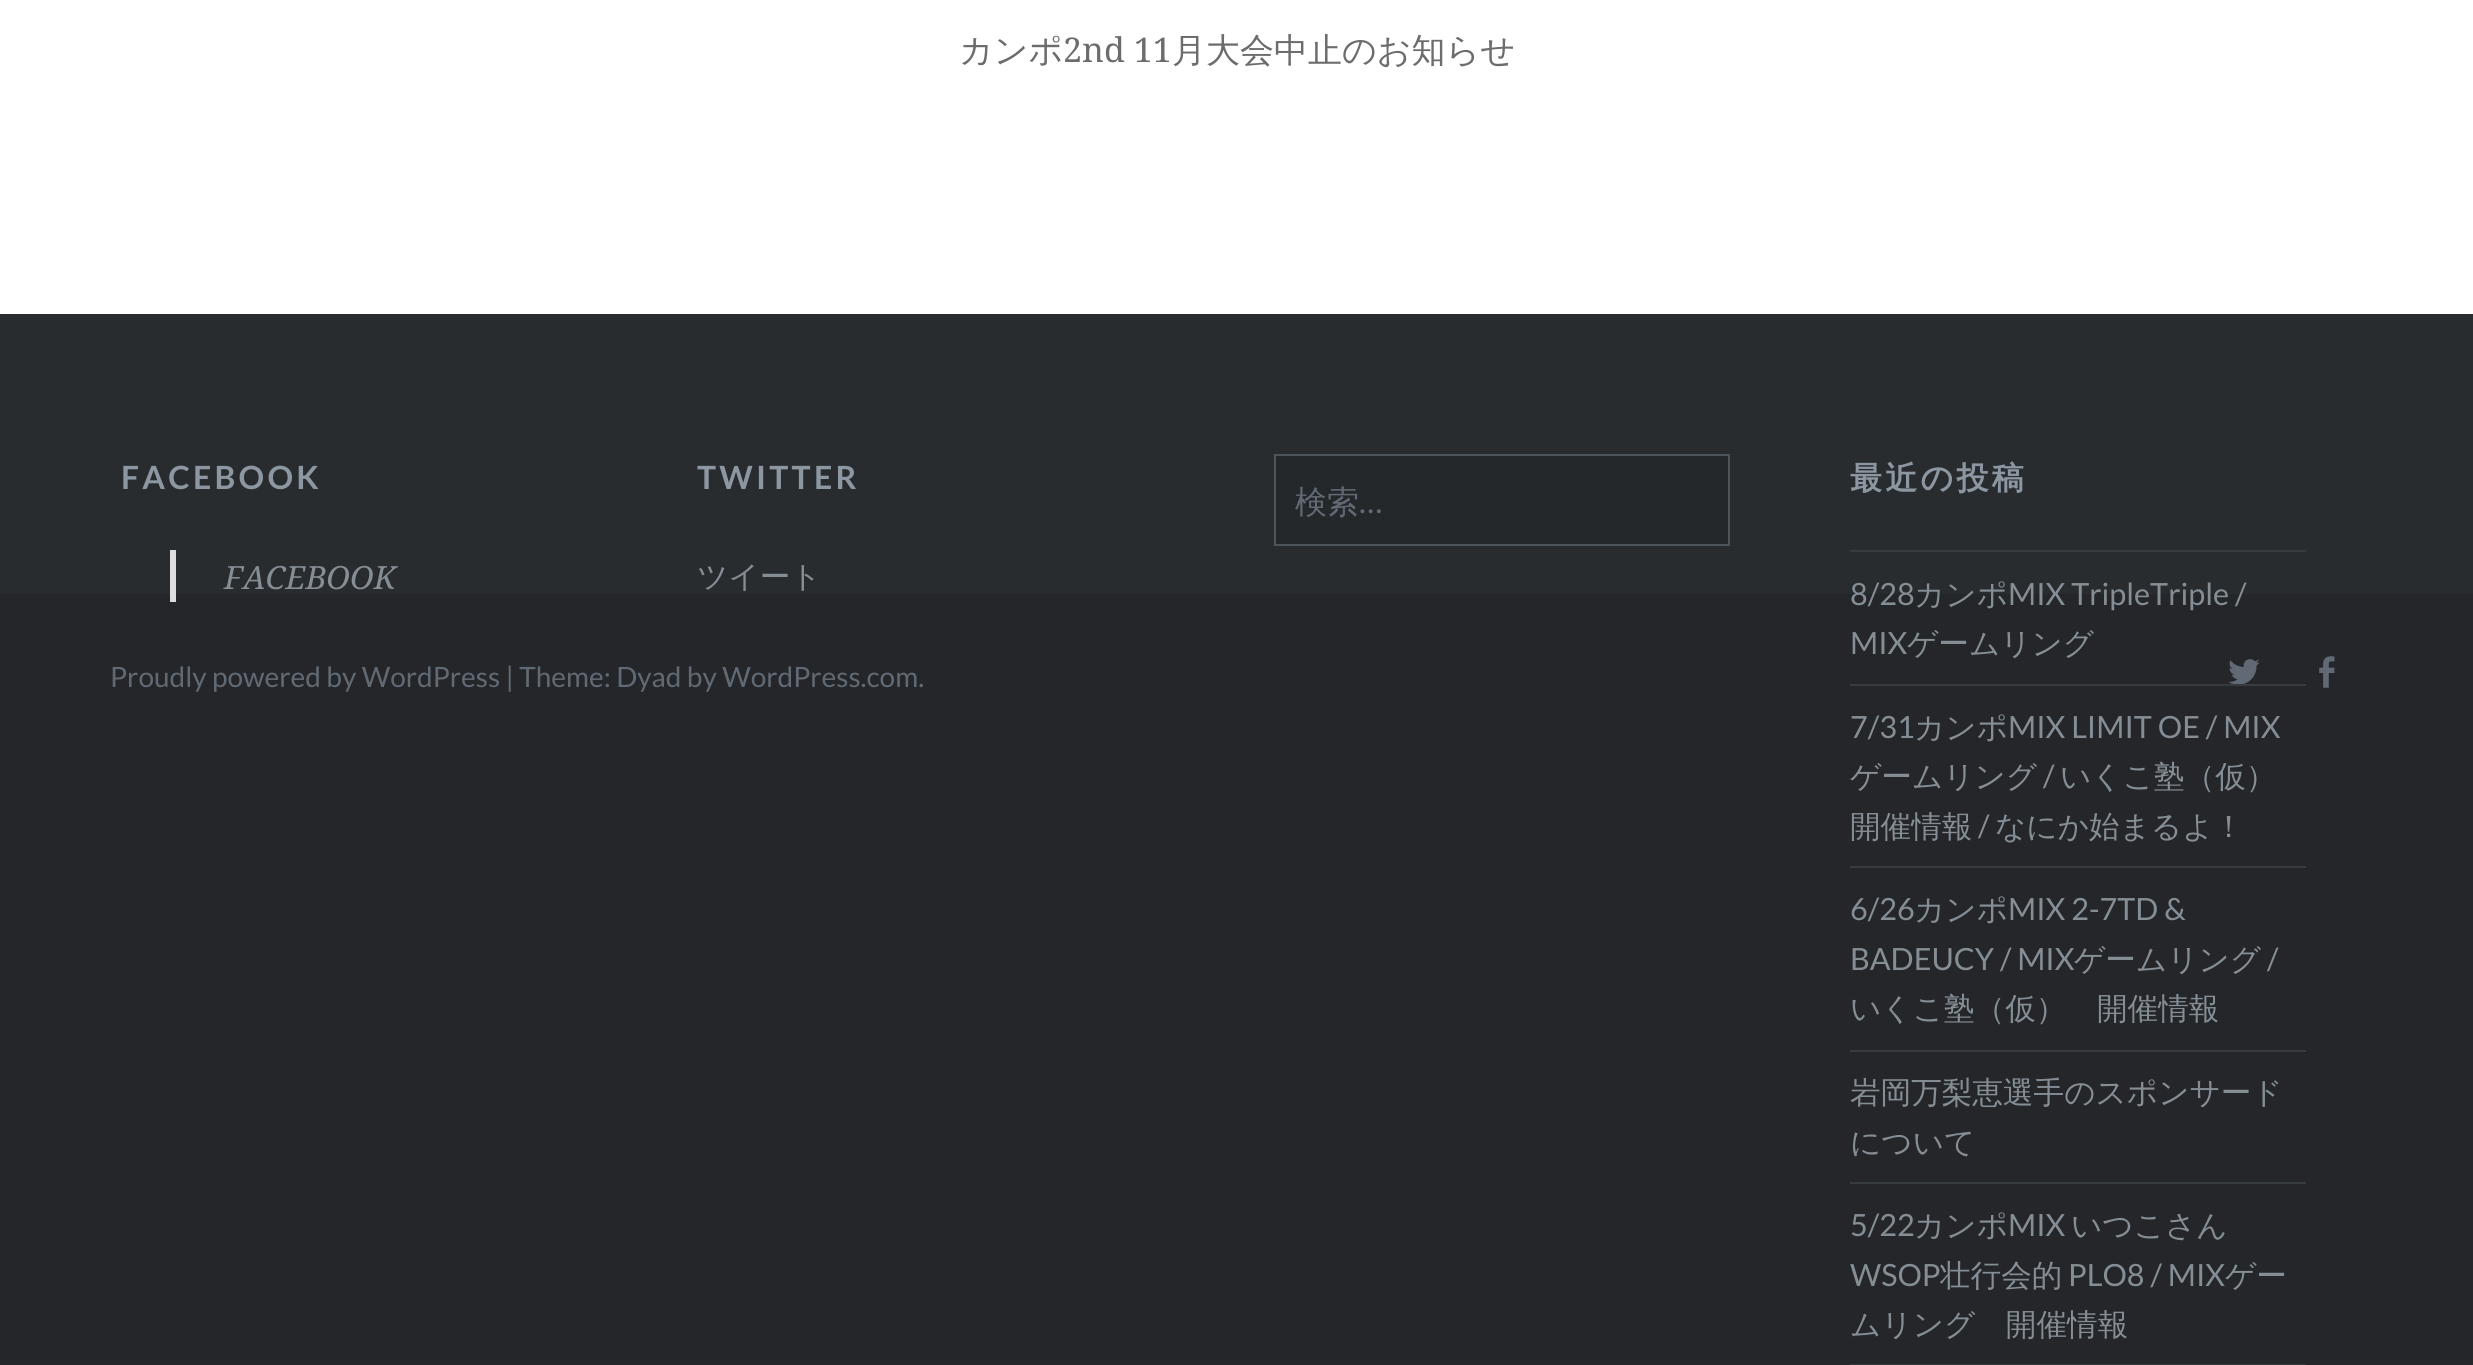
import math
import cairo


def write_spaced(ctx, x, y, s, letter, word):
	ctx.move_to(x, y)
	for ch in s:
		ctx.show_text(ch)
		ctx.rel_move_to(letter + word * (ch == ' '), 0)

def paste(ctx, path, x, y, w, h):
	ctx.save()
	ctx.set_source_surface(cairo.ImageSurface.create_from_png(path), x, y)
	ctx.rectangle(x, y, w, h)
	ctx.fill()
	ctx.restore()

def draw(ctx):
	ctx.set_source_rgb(0.141, 0.149, 0.161)
	ctx.paint()
	ctx.set_source_rgb(1, 1, 1)
	ctx.rectangle(0, 0, 2473, 314)
	ctx.fill()
	ctx.select_font_face('WenQuanYi Zen Hei Medium')
	ctx.set_font_size(34)
	ctx.set_source_rgb(0.416, 0.424, 0.431)
	ctx.move_to(959, 62)
	ctx.show_text('カンポ')
	ctx.select_font_face('Noto Serif')
	ctx.move_to(1063, 62)
	ctx.show_text('2nd 11')
	ctx.select_font_face('WenQuanYi Zen Hei Medium')
	ctx.move_to(1172, 62)
	ctx.show_text('月大会中止のお知らせ')
	ctx.set_source_rgb(0.161, 0.173, 0.184)
	ctx.rectangle(0, 314, 2473, 280)
	ctx.fill()
	ctx.select_font_face('Lato', cairo.FONT_SLANT_NORMAL, cairo.FONT_WEIGHT_BOLD)
	ctx.set_font_size(32)
	ctx.set_source_rgb(0.549, 0.592, 0.635)
	write_spaced(ctx, 121, 489, 'FACEBOOK', 3.25, 0)
	ctx.set_source_rgb(0.867, 0.867, 0.867)
	ctx.rectangle(170, 550, 6, 52)
	ctx.fill()
	ctx.select_font_face('Noto Serif', cairo.FONT_SLANT_ITALIC)
	ctx.set_source_rgb(0.522, 0.553, 0.584)
	ctx.move_to(224, 589)
	ctx.show_text('FACEBOOK')
	ctx.select_font_face('Lato', cairo.FONT_SLANT_NORMAL, cairo.FONT_WEIGHT_BOLD)
	ctx.set_source_rgb(0.549, 0.592, 0.635)
	write_spaced(ctx, 697, 489, 'TWITTER', 3.25, 0)
	ctx.select_font_face('WenQuanYi Zen Hei Medium')
	ctx.set_font_size(30.6)
	ctx.set_source_rgb(0.522, 0.553, 0.584)
	ctx.move_to(697, 587)
	ctx.show_text('ツイート')
	ctx.set_source_rgb(0.145, 0.157, 0.165)
	ctx.rectangle(1275, 455, 454, 90)
	ctx.fill_preserve()
	ctx.set_source_rgb(0.302, 0.329, 0.357)
	ctx.stroke()
	ctx.set_font_size(32)
	ctx.set_source_rgb(0.38, 0.416, 0.455)
	ctx.move_to(1295, 513)
	ctx.show_text('検索')
	ctx.select_font_face('Lato')
	ctx.move_to(1359, 513)
	ctx.show_text('…')
	ctx.select_font_face('WenQuanYi Zen Hei', cairo.FONT_SLANT_NORMAL, cairo.FONT_WEIGHT_BOLD)
	ctx.set_source_rgb(0.549, 0.592, 0.635)
	write_spaced(ctx, 1850, 489, '最近の投稿', 3.25, 0)
	ctx.set_source_rgb(0.212, 0.231, 0.251)
	ctx.rectangle(1850, 550, 456, 2)
	ctx.fill()
	ctx.rectangle(1850, 684, 456, 2)
	ctx.fill()
	ctx.select_font_face('Lato')
	ctx.set_font_size(30.6)
	ctx.set_source_rgb(0.522, 0.553, 0.584)
	ctx.move_to(1850, 605)
	ctx.show_text('8/28')
	ctx.select_font_face('WenQuanYi Zen Hei Medium')
	ctx.move_to(1914, 605)
	ctx.show_text('カンポ')
	ctx.select_font_face('Lato')
	ctx.move_to(2008, 605)
	ctx.show_text('MIX TripleTriple /')
	ctx.move_to(1850, 654)
	ctx.show_text('MIX')
	ctx.select_font_face('WenQuanYi Zen Hei Medium')
	ctx.move_to(1907, 654)
	ctx.show_text('ゲームリング')
	ctx.set_source_rgb(0.212, 0.231, 0.251)
	ctx.rectangle(1850, 866, 456, 2)
	ctx.fill()
	ctx.select_font_face('Lato')
	ctx.set_source_rgb(0.522, 0.553, 0.584)
	ctx.move_to(1850, 738)
	ctx.show_text('7/31')
	ctx.select_font_face('WenQuanYi Zen Hei Medium')
	ctx.move_to(1914, 738)
	ctx.show_text('カンポ')
	ctx.select_font_face('Lato')
	ctx.move_to(2008, 738)
	ctx.show_text('MIX LIMIT OE / MIX')
	ctx.select_font_face('WenQuanYi Zen Hei Medium')
	ctx.move_to(1850, 787)
	ctx.show_text('ゲームリング')
	ctx.select_font_face('Lato')
	ctx.move_to(2043, 787)
	ctx.show_text('/')
	ctx.select_font_face('WenQuanYi Zen Hei Medium')
	ctx.move_to(2060, 787)
	ctx.show_text('いくこ塾（仮）')
	ctx.move_to(1850, 837)
	ctx.show_text('開催情報')
	ctx.select_font_face('Lato')
	ctx.move_to(1978, 837)
	ctx.show_text('/')
	ctx.select_font_face('WenQuanYi Zen Hei Medium')
	ctx.move_to(1995, 837)
	ctx.show_text('なにか始まるよ！')
	ctx.set_source_rgb(0.212, 0.231, 0.251)
	ctx.rectangle(1850, 1050, 456, 2)
	ctx.fill()
	ctx.select_font_face('Lato')
	ctx.set_source_rgb(0.522, 0.553, 0.584)
	ctx.move_to(1850, 920)
	ctx.show_text('6/26')
	ctx.select_font_face('WenQuanYi Zen Hei Medium')
	ctx.move_to(1914, 920)
	ctx.show_text('カンポ')
	ctx.select_font_face('Lato')
	ctx.move_to(2008, 920)
	ctx.show_text('MIX 2-7TD &')
	ctx.move_to(1850, 970)
	ctx.show_text('BADEUCY / MIX')
	ctx.select_font_face('WenQuanYi Zen Hei Medium')
	ctx.move_to(2074, 970)
	ctx.show_text('ゲームリング')
	ctx.select_font_face('Lato')
	ctx.move_to(2267, 970)
	ctx.show_text('/')
	ctx.select_font_face('WenQuanYi Zen Hei Medium')
	ctx.move_to(1850, 1019)
	ctx.show_text('いくこ塾（仮）　開催情報')
	ctx.set_source_rgb(0.212, 0.231, 0.251)
	ctx.rectangle(1850, 1182, 456, 2)
	ctx.fill()
	ctx.set_source_rgb(0.522, 0.553, 0.584)
	ctx.move_to(1850, 1103)
	ctx.show_text('岩岡万梨恵選手のスポンサード')
	ctx.move_to(1850, 1153)
	ctx.show_text('について')
	ctx.set_source_rgb(0.212, 0.231, 0.251)
	ctx.rectangle(1850, 1364, 456, 1)
	ctx.fill()
	ctx.select_font_face('Lato')
	ctx.set_source_rgb(0.522, 0.553, 0.584)
	ctx.move_to(1850, 1236)
	ctx.show_text('5/22')
	ctx.select_font_face('WenQuanYi Zen Hei Medium')
	ctx.move_to(1914, 1236)
	ctx.show_text('カンポ')
	ctx.select_font_face('Lato')
	ctx.move_to(2008, 1236)
	ctx.show_text('MIX')
	ctx.select_font_face('WenQuanYi Zen Hei Medium')
	ctx.move_to(2071, 1236)
	ctx.show_text('いつこさん')
	ctx.select_font_face('Lato')
	ctx.move_to(1850, 1286)
	ctx.show_text('WSOP')
	ctx.select_font_face('WenQuanYi Zen Hei Medium')
	ctx.move_to(1940, 1286)
	ctx.show_text('壮行会的')
	ctx.select_font_face('Lato')
	ctx.move_to(2068, 1286)
	ctx.show_text('PLO8 / MIX')
	ctx.select_font_face('WenQuanYi Zen Hei Medium')
	ctx.move_to(2225, 1286)
	ctx.show_text('ゲー')
	ctx.move_to(1850, 1335)
	ctx.show_text('ムリング　開催情報')
	ctx.select_font_face('Lato')
	ctx.set_font_size(28)
	ctx.set_source_rgb(0.38, 0.416, 0.455)
	ctx.move_to(110, 687)
	ctx.show_text('Proudly powered by WordPress | Theme: Dyad by WordPress.com.')
	paste(ctx, 'media/1.png', 2228, 659, 32, 25)
	paste(ctx, 'media/2.png', 2319, 656, 16, 32)


surface = cairo.ImageSurface(cairo.FORMAT_RGB24, 2473, 1365)
ctx = cairo.Context(surface)
options = cairo.FontOptions()
options.set_hint_metrics(cairo.HINT_METRICS_OFF)
options.set_hint_style(cairo.HINT_STYLE_NONE)
ctx.set_font_options(options)
ctx.set_miter_limit(4)
draw(ctx)
surface.write_to_png('image.png')
